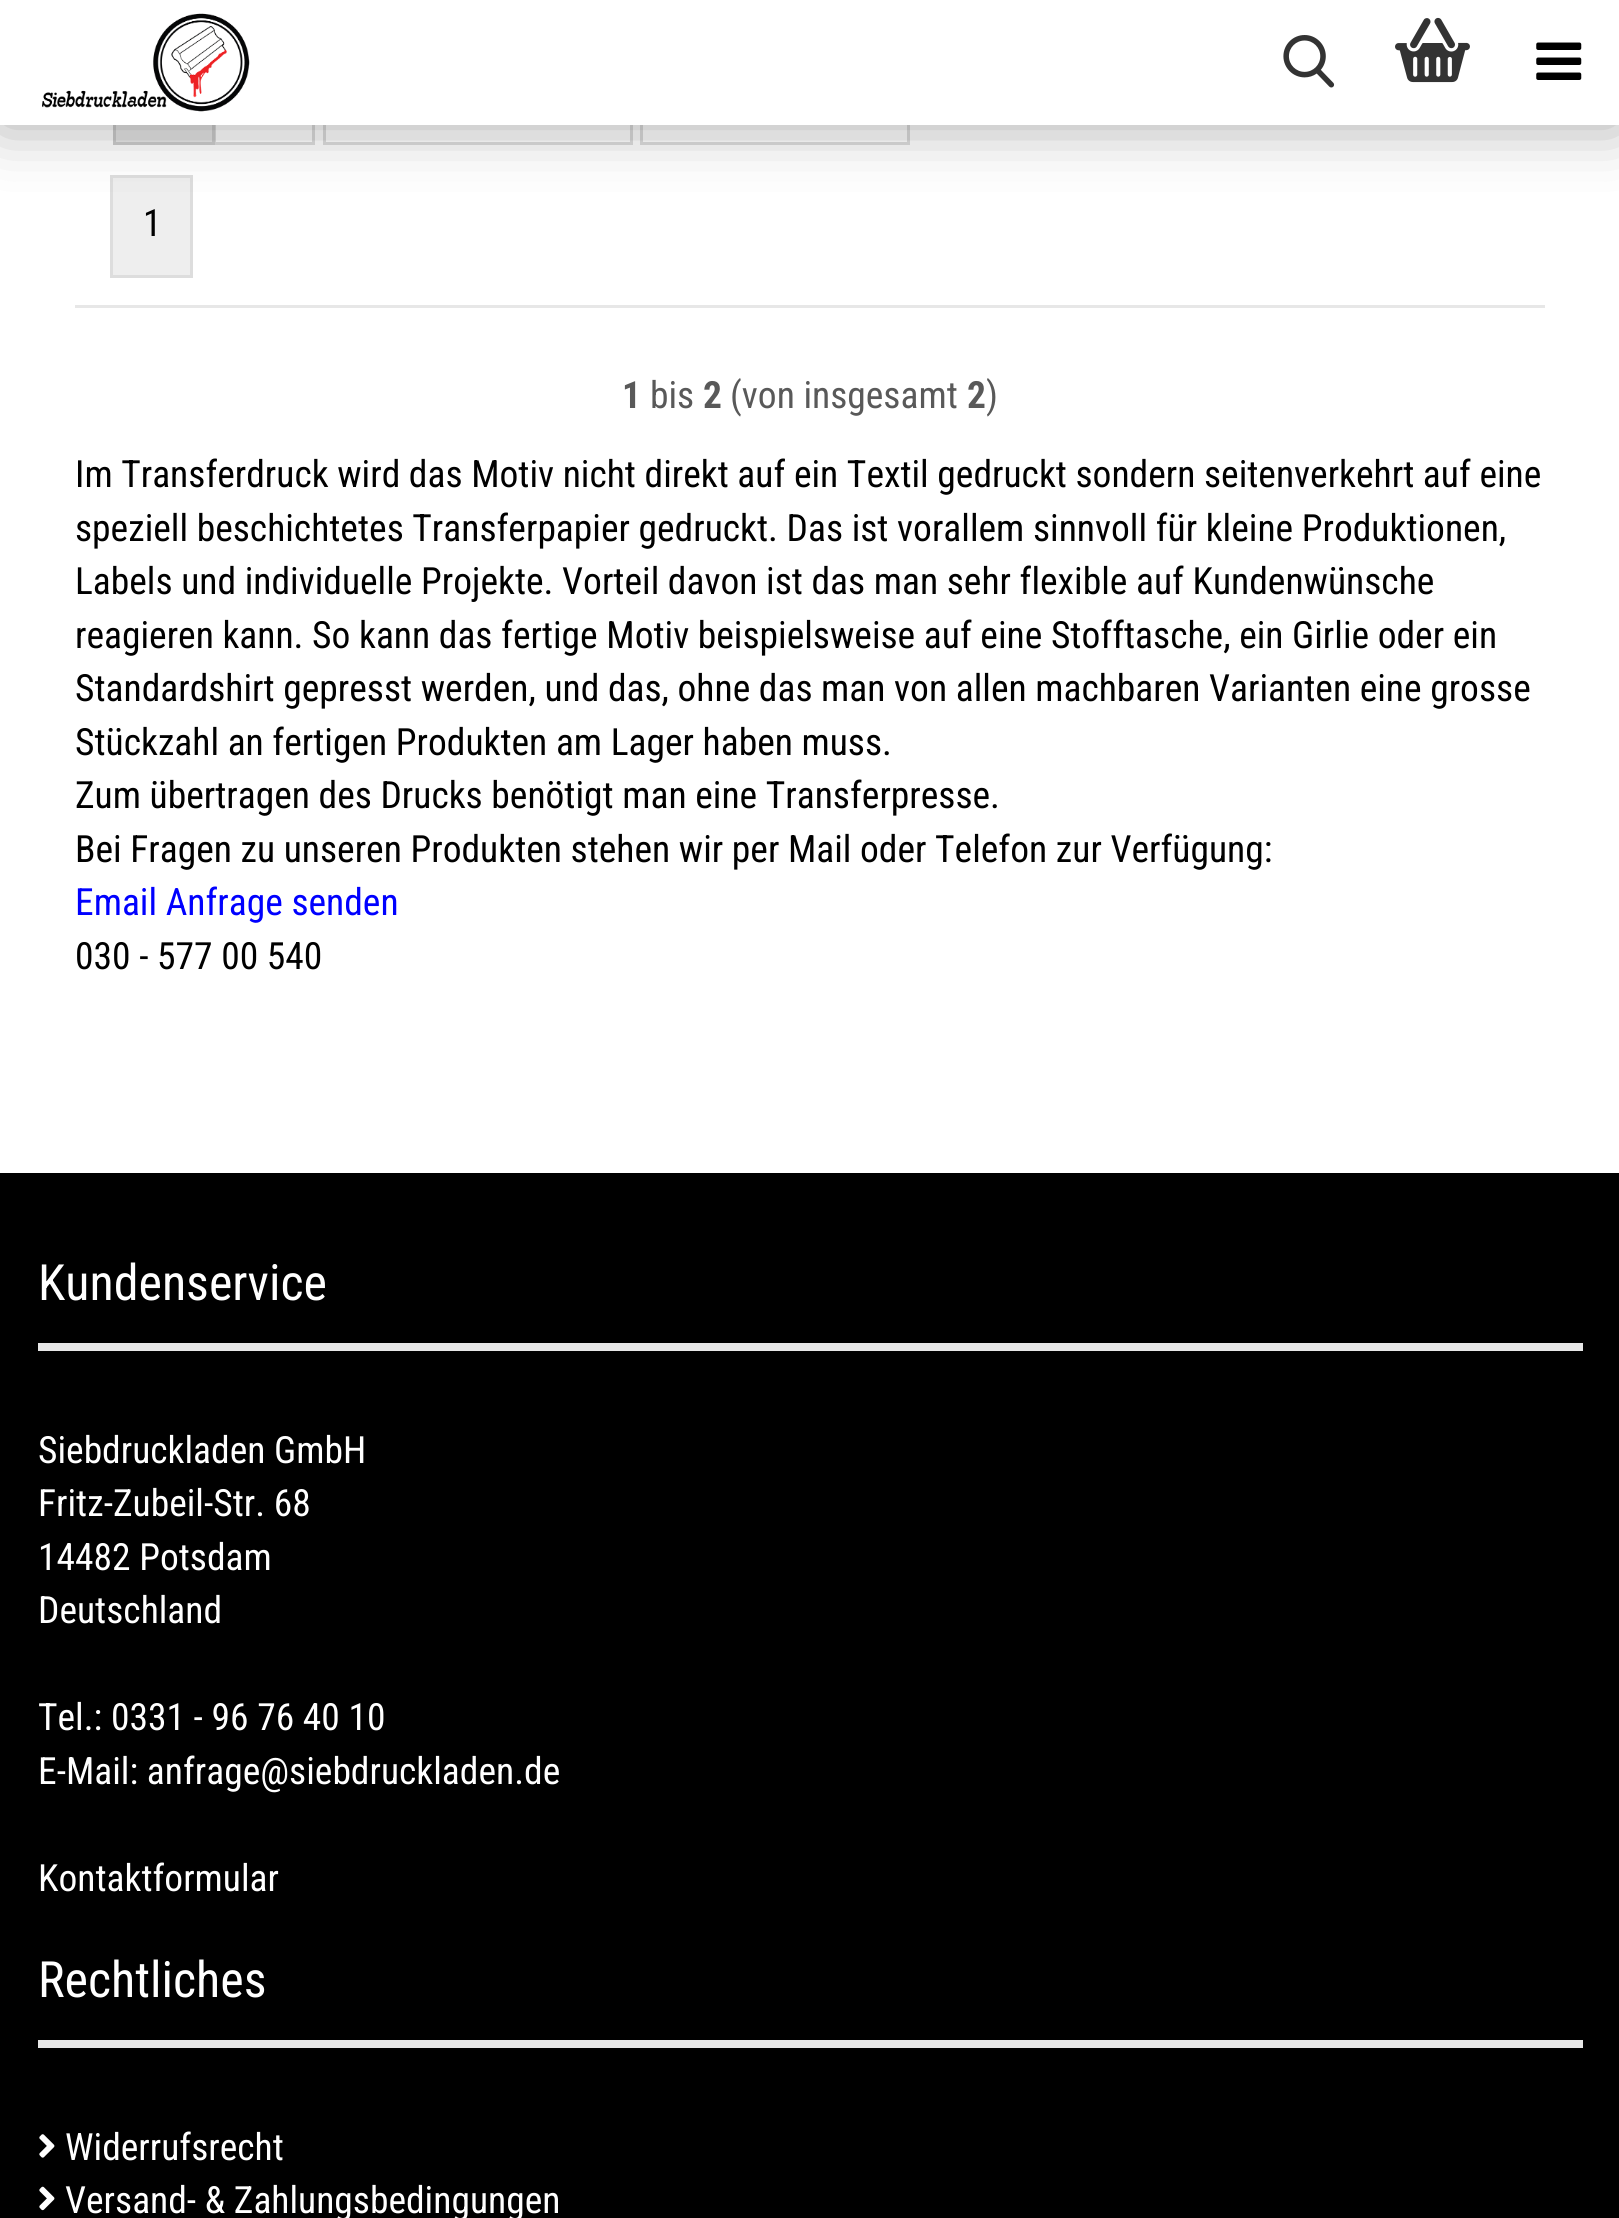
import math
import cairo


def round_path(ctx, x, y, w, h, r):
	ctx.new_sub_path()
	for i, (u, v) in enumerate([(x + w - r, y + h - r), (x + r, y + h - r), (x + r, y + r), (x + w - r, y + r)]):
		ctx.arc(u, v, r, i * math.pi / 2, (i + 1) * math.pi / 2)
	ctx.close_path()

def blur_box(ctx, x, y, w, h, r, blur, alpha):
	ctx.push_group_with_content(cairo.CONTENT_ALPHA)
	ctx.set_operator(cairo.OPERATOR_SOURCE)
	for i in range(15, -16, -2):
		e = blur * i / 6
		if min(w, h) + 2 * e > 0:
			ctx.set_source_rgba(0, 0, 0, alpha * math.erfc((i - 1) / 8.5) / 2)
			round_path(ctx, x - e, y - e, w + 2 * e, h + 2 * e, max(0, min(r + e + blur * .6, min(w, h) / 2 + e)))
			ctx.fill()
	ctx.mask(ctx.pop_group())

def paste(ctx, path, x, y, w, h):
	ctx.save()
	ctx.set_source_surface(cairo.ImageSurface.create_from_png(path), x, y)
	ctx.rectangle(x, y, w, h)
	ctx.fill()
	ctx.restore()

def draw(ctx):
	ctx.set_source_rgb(1, 1, 1)
	ctx.paint()
	ctx.set_source_rgb(0.902, 0.902, 0.902)
	ctx.rectangle(116, 125, 96, 17)
	ctx.fill()
	ctx.rectangle(214.5, 44.5, 99, 99)
	ctx.set_source_rgb(0.867, 0.867, 0.867)
	ctx.set_line_width(3)
	ctx.stroke()
	ctx.rectangle(114.5, 44.5, 99, 99)
	ctx.set_source_rgb(0.8, 0.8, 0.8)
	ctx.stroke()
	ctx.rectangle(324.5, 44.5, 307, 99)
	ctx.set_source_rgb(0.867, 0.867, 0.867)
	ctx.stroke()
	ctx.rectangle(641.5, 44.5, 267, 99)
	ctx.stroke()
	ctx.set_source_rgb(0.933, 0.933, 0.933)
	ctx.rectangle(111.5, 176.5, 80, 100)
	ctx.fill_preserve()
	ctx.set_source_rgb(0.867, 0.867, 0.867)
	ctx.stroke()
	ctx.set_source_rgb(0, 0, 0)
	blur_box(ctx, 0, 0, 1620, 125, 0, 31, 0.35)
	ctx.set_source_rgb(1, 1, 1)
	ctx.rectangle(0, 0, 1619, 125)
	ctx.fill()
	paste(ctx, 'media/1.png', 42, 13, 208, 99)
	paste(ctx, 'media/2.png', 1283, 35, 52, 53)
	paste(ctx, 'media/3.png', 1395, 17, 75, 66)
	paste(ctx, 'media/4.png', 1536, 42, 46, 38)
	ctx.set_source_rgb(0.906, 0.906, 0.906)
	ctx.rectangle(75, 305, 1470, 3)
	ctx.fill()
	ctx.select_font_face('Roboto Condensed')
	ctx.set_font_size(37.5)
	ctx.set_source_rgb(0, 0, 0)
	ctx.move_to(143, 236)
	ctx.show_text('1')
	ctx.select_font_face('Roboto Condensed', cairo.FONT_SLANT_NORMAL, cairo.FONT_WEIGHT_BOLD)
	ctx.set_source_rgb(0.349, 0.349, 0.349)
	ctx.move_to(622, 408)
	ctx.show_text('1')
	ctx.select_font_face('Roboto Condensed')
	ctx.move_to(650, 408)
	ctx.show_text('bis')
	ctx.select_font_face('Roboto Condensed', cairo.FONT_SLANT_NORMAL, cairo.FONT_WEIGHT_BOLD)
	ctx.move_to(703, 408)
	ctx.show_text('2')
	ctx.select_font_face('Roboto Condensed')
	ctx.move_to(730, 408)
	ctx.show_text('(von insgesamt')
	ctx.select_font_face('Roboto Condensed', cairo.FONT_SLANT_NORMAL, cairo.FONT_WEIGHT_BOLD)
	ctx.move_to(967, 408)
	ctx.show_text('2')
	ctx.select_font_face('Roboto Condensed')
	ctx.move_to(986, 408)
	ctx.show_text(')')
	ctx.set_source_rgb(0, 0, 0)
	for x, y, s in [
		(75, 487, 'Im Transferdruck wird das Motiv nicht direkt auf ein Textil gedruckt sondern seitenverkehrt auf eine'),
		(75, 541, 'speziell beschichtetes Transferpapier gedruckt. Das ist vorallem sinnvoll für kleine Produktionen,'),
		(75, 594, 'Labels und individuelle Projekte. Vorteil davon ist das man sehr flexible auf Kundenwünsche'),
		(75, 648, 'reagieren kann. So kann das fertige Motiv beispielsweise auf eine Stofftasche, ein Girlie oder ein'),
		(75, 701, 'Standardshirt gepresst werden, und das, ohne das man von allen machbaren Varianten eine grosse'),
		(75, 755, 'Stückzahl an fertigen Produkten am Lager haben muss.'),
		(75, 808, 'Zum übertragen des Drucks benötigt man eine Transferpresse.'),
		(75, 862, 'Bei Fragen zu unseren Produkten stehen wir per Mail oder Telefon zur Verfügung:'),
	]:
		ctx.move_to(x, y)
		ctx.show_text(s)
	ctx.set_source_rgb(0, 0, 1)
	ctx.move_to(75, 915)
	ctx.show_text('Email Anfrage senden')
	ctx.set_source_rgb(0, 0, 0)
	ctx.move_to(75, 969)
	ctx.show_text('030 - 577 00 540')
	ctx.rectangle(0, 1173, 1619, 1045)
	ctx.fill()
	ctx.set_source_rgb(0.906, 0.906, 0.906)
	ctx.rectangle(38, 1343, 1545, 8)
	ctx.fill()
	ctx.set_font_size(50)
	ctx.set_source_rgb(1, 1, 1)
	ctx.move_to(38, 1300)
	ctx.show_text('Kundenservice')
	ctx.set_font_size(37.5)
	for x, y, s in [
		(38, 1463, 'Siebdruckladen GmbH'),
		(38, 1516, 'Fritz-Zubeil-Str. 68'),
		(38, 1570, '14482 Potsdam'),
		(38, 1623, 'Deutschland'),
		(38, 1730, 'Tel.: 0331 - 96 76 40 10'),
		(38, 1784, 'E-Mail: anfrage@siebdruckladen.de'),
		(38, 1891, 'Kontaktformular'),
	]:
		ctx.move_to(x, y)
		ctx.show_text(s)
	ctx.set_source_rgb(0.906, 0.906, 0.906)
	ctx.rectangle(38, 2040, 1545, 8)
	ctx.fill()
	ctx.set_font_size(50)
	ctx.set_source_rgb(1, 1, 1)
	ctx.move_to(38, 1997)
	ctx.show_text('Rechtliches')
	paste(ctx, 'media/5.png', 39, 2134, 16, 24)
	ctx.set_font_size(37.5)
	ctx.move_to(65, 2160)
	ctx.show_text('Widerrufsrecht')
	paste(ctx, 'media/6.png', 39, 2186, 16, 25)
	ctx.move_to(65, 2213)
	ctx.show_text('Versand- & Zahlungsbedingungen')


surface = cairo.ImageSurface(cairo.FORMAT_RGB24, 1619, 2218)
ctx = cairo.Context(surface)
options = cairo.FontOptions()
options.set_hint_metrics(cairo.HINT_METRICS_OFF)
options.set_hint_style(cairo.HINT_STYLE_NONE)
ctx.set_font_options(options)
ctx.set_miter_limit(4)
draw(ctx)
surface.write_to_png('image.png')
